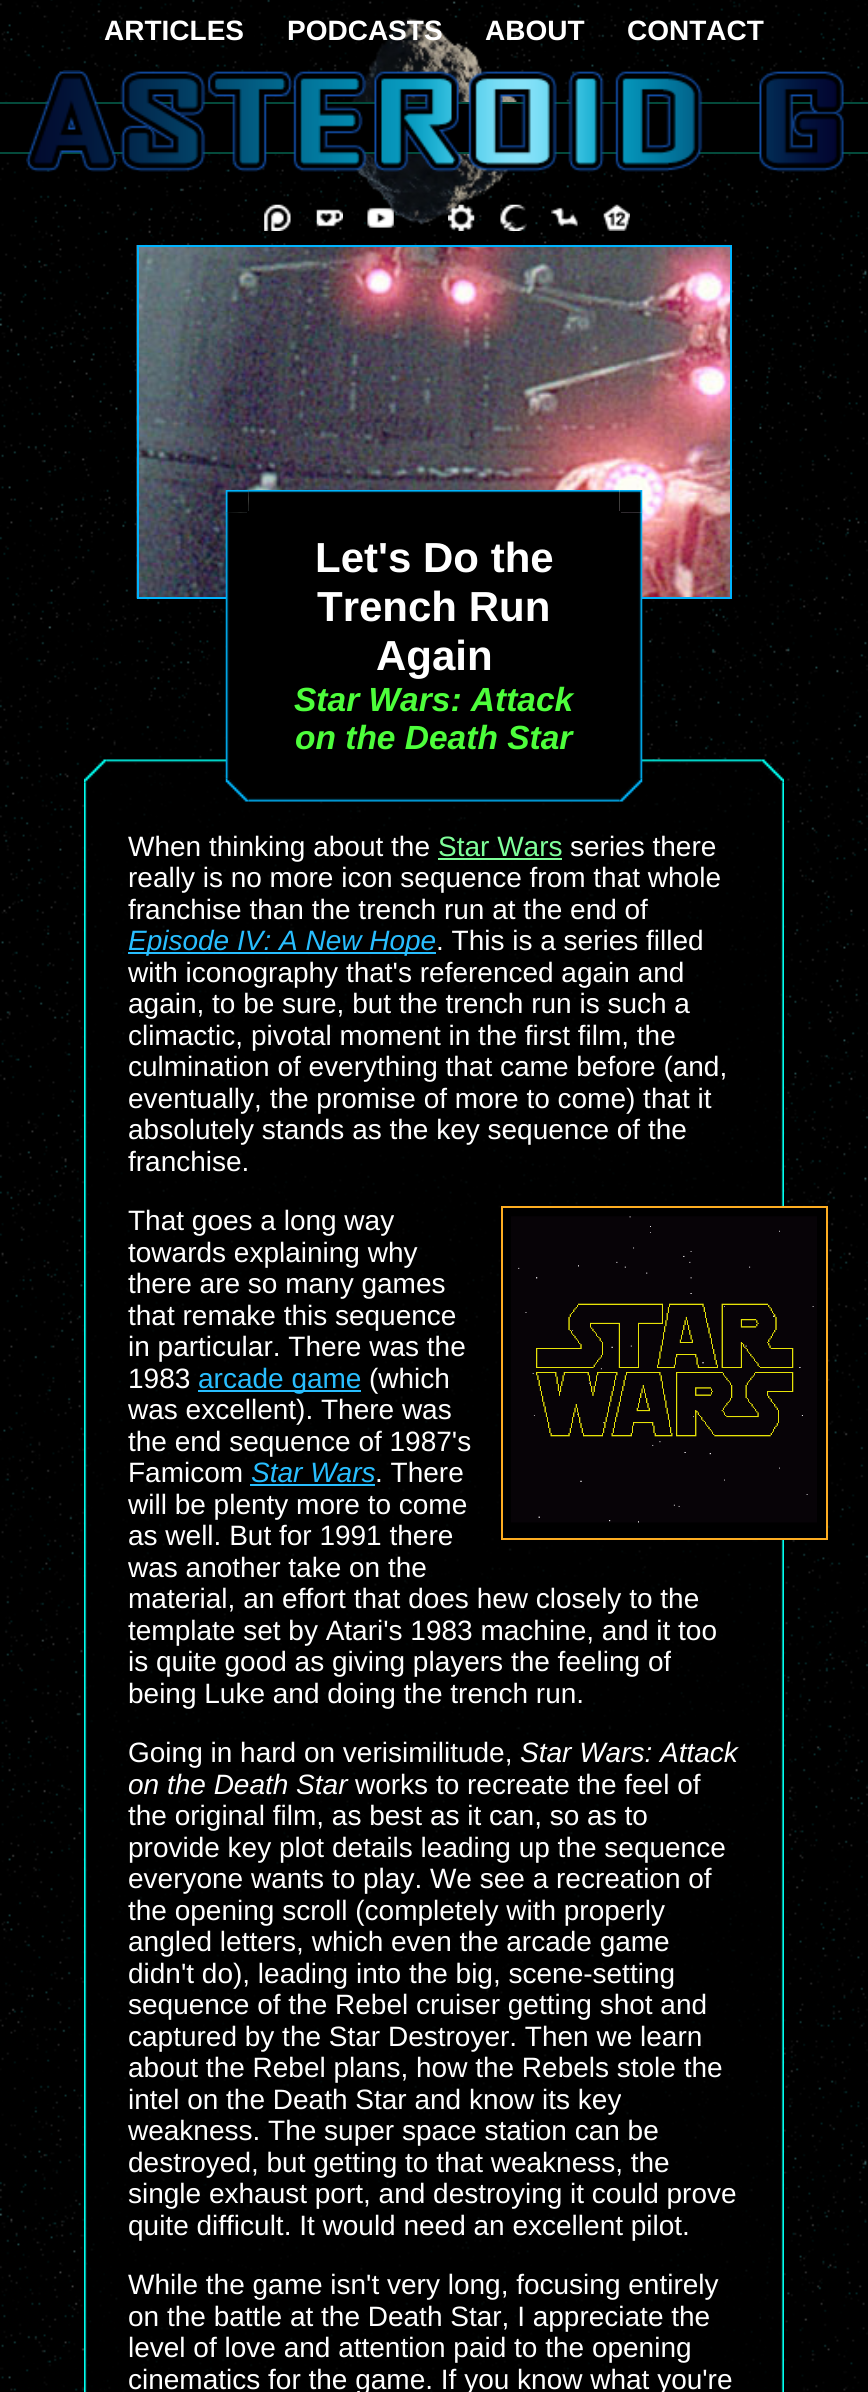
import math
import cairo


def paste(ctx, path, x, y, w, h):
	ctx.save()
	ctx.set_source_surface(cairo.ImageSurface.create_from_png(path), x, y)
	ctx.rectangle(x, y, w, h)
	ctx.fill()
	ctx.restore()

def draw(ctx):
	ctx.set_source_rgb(1, 1, 1)
	ctx.paint()
	paste(ctx, 'media/1.png', 0, 0, 868, 2392)
	paste(ctx, 'media/2.png', 351, 17, 167, 208)
	ctx.set_source_rgb(0, 0, 0)
	ctx.rectangle(0, 104, 868, 48)
	ctx.fill()
	ctx.set_source_rgb(0.016, 0.29, 0.231)
	ctx.rectangle(0, 102, 868, 2)
	ctx.rectangle(0, 152, 868, 2)
	ctx.fill()
	ctx.select_font_face('Liberation Sans', cairo.FONT_SLANT_NORMAL, cairo.FONT_WEIGHT_BOLD)
	ctx.set_font_size(28)
	ctx.set_source_rgb(1, 1, 1)
	for x, y, s in [
		(104, 40, 'ARTICLES'),
		(287, 40, 'PODCASTS'),
		(485, 40, 'ABOUT'),
		(627, 40, 'CONTACT'),
	]:
		ctx.move_to(x, y)
		ctx.show_text(s)
	paste(ctx, 'media/3.png', 264, 204, 27, 27)
	paste(ctx, 'media/4.png', 316, 209, 27, 18)
	paste(ctx, 'media/5.png', 367, 207, 27, 21)
	paste(ctx, 'media/6.png', 448, 204, 27, 27)
	paste(ctx, 'media/7.png', 500, 204, 27, 27)
	paste(ctx, 'media/8.png', 551, 207, 27, 20)
	paste(ctx, 'media/9.png', 603, 204, 27, 27)
	paste(ctx, 'media/10.png', 26, 70, 818, 102)
	paste(ctx, 'media/11.png', 136, 245, 594, 354)
	ctx.rectangle(138, 246, 593, 352)
	ctx.set_source_rgb(0, 0.706, 1)
	ctx.stroke()
	ctx.set_source_rgba(0, 0, 0, 0.8)
	ctx.rectangle(105, 780, 658, 1612)
	ctx.fill()
	paste(ctx, 'media/13.png', 84, 759, 700, 1633)
	ctx.set_source_rgb(0, 0, 0)
	ctx.rectangle(247, 511, 374, 269)
	ctx.fill()
	paste(ctx, 'media/12.png', 225, 490, 418, 312)
	ctx.set_font_size(42)
	ctx.set_source_rgb(1, 1, 1)
	for x, y, s in [
		(315, 572, 'Let\'s Do the'),
		(317, 621, 'Trench Run'),
		(376, 670, 'Again'),
	]:
		ctx.move_to(x, y)
		ctx.show_text(s)
	ctx.select_font_face('Liberation Sans', cairo.FONT_SLANT_ITALIC, cairo.FONT_WEIGHT_BOLD)
	ctx.set_font_size(33.5)
	ctx.set_source_rgb(0.302, 0.996, 0.231)
	ctx.move_to(294, 711)
	ctx.show_text('Star Wars: Attack')
	ctx.move_to(295, 749)
	ctx.show_text('on the Death Star')
	ctx.select_font_face('Liberation Sans')
	ctx.set_font_size(28)
	ctx.set_source_rgb(1, 1, 1)
	ctx.move_to(128, 856)
	ctx.show_text('When thinking about the')
	ctx.set_source_rgb(0.498, 1, 0.604)
	ctx.move_to(438, 856)
	ctx.show_text('Star Wars')
	ctx.rectangle(438, 858, 124, 2)
	ctx.fill()
	ctx.set_source_rgb(1, 1, 1)
	for x, y, s in [
		(570, 856, 'series there'),
		(128, 887, 'really is no more icon sequence from that whole'),
		(128, 919, 'franchise than the trench run at the end of'),
	]:
		ctx.move_to(x, y)
		ctx.show_text(s)
	ctx.set_source_rgb(0.157, 0.745, 1)
	ctx.rectangle(128, 952, 308, 2)
	ctx.fill()
	ctx.select_font_face('Liberation Sans', cairo.FONT_SLANT_ITALIC)
	ctx.move_to(128, 950)
	ctx.show_text('Episode IV: A New Hope')
	ctx.select_font_face('Liberation Sans')
	ctx.set_source_rgb(1, 1, 1)
	for x, y, s in [
		(436, 950, '. This is a series filled'),
		(128, 982, 'with iconography that\'s referenced again and'),
		(128, 1013, 'again, to be sure, but the trench run is such a'),
		(128, 1045, 'climactic, pivotal moment in the first film, the'),
		(128, 1076, 'culmination of everything that came before (and,'),
		(128, 1108, 'eventually, the promise of more to come) that it'),
		(128, 1139, 'absolutely stands as the key sequence of the'),
		(128, 1171, 'franchise.'),
	]:
		ctx.move_to(x, y)
		ctx.show_text(s)
	ctx.set_source_rgb(0, 0, 0)
	ctx.rectangle(502, 1207, 325, 332)
	ctx.fill_preserve()
	ctx.set_source_rgb(0.996, 0.678, 0.129)
	ctx.stroke()
	paste(ctx, 'media/14.png', 511, 1216, 306, 307)
	ctx.set_source_rgb(1, 1, 1)
	for x, y, s in [
		(128, 1230, 'That goes a long way'),
		(128, 1262, 'towards explaining why'),
		(128, 1293, 'there are so many games'),
		(128, 1325, 'that remake this sequence'),
		(128, 1356, 'in particular. There was the'),
		(128, 1388, '1983'),
	]:
		ctx.move_to(x, y)
		ctx.show_text(s)
	ctx.set_source_rgb(0.157, 0.745, 1)
	ctx.rectangle(198, 1390, 163, 2)
	ctx.fill()
	ctx.move_to(198, 1388)
	ctx.show_text('arcade game')
	ctx.set_source_rgb(1, 1, 1)
	for x, y, s in [
		(369, 1388, '(which'),
		(128, 1419, 'was excellent). There was'),
		(128, 1451, 'the end sequence of 1987\'s'),
		(128, 1482, 'Famicom'),
	]:
		ctx.move_to(x, y)
		ctx.show_text(s)
	ctx.select_font_face('Liberation Sans', cairo.FONT_SLANT_ITALIC)
	ctx.set_source_rgb(0.157, 0.745, 1)
	ctx.move_to(251, 1482)
	ctx.show_text('Star Wars')
	ctx.rectangle(250, 1484, 125, 2)
	ctx.fill()
	ctx.select_font_face('Liberation Sans')
	ctx.set_source_rgb(1, 1, 1)
	for x, y, s in [
		(375, 1482, '. There'),
		(128, 1514, 'will be plenty more to come'),
		(128, 1545, 'as well. But for 1991 there'),
		(128, 1577, 'was another take on the'),
		(128, 1608, 'material, an effort that does hew closely to the'),
		(128, 1640, 'template set by Atari\'s 1983 machine, and it too'),
		(128, 1671, 'is quite good as giving players the feeling of'),
		(128, 1703, 'being Luke and doing the trench run.'),
		(128, 1762, 'Going in hard on verisimilitude,'),
	]:
		ctx.move_to(x, y)
		ctx.show_text(s)
	ctx.select_font_face('Liberation Sans', cairo.FONT_SLANT_ITALIC)
	ctx.move_to(520, 1762)
	ctx.show_text('Star Wars: Attack')
	ctx.move_to(128, 1794)
	ctx.show_text('on the Death Star')
	ctx.select_font_face('Liberation Sans')
	for x, y, s in [
		(355, 1794, 'works to recreate the feel of'),
		(128, 1825, 'the original film, as best as it can, so as to'),
		(128, 1857, 'provide key plot details leading up the sequence'),
		(128, 1888, 'everyone wants to play. We see a recreation of'),
		(128, 1920, 'the opening scroll (completely with properly'),
		(128, 1951, 'angled letters, which even the arcade game'),
		(128, 1983, 'didn\'t do), leading into the big, scene-setting'),
		(128, 2014, 'sequence of the Rebel cruiser getting shot and'),
		(128, 2046, 'captured by the Star Destroyer. Then we learn'),
		(128, 2077, 'about the Rebel plans, how the Rebels stole the'),
		(128, 2109, 'intel on the Death Star and know its key'),
		(128, 2140, 'weakness. The super space station can be'),
		(128, 2172, 'destroyed, but getting to that weakness, the'),
		(128, 2203, 'single exhaust port, and destroying it could prove'),
		(128, 2235, 'quite difficult. It would need an excellent pilot.'),
		(128, 2294, 'While the game isn\'t very long, focusing entirely'),
		(128, 2326, 'on the battle at the Death Star, I appreciate the'),
		(128, 2357, 'level of love and attention paid to the opening'),
		(128, 2389, 'cinematics for the game. If you know what you\'re'),
	]:
		ctx.move_to(x, y)
		ctx.show_text(s)


surface = cairo.ImageSurface(cairo.FORMAT_RGB24, 868, 2392)
ctx = cairo.Context(surface)
options = cairo.FontOptions()
options.set_hint_metrics(cairo.HINT_METRICS_OFF)
options.set_hint_style(cairo.HINT_STYLE_NONE)
ctx.set_font_options(options)
ctx.set_miter_limit(4)
draw(ctx)
surface.write_to_png('image.png')
